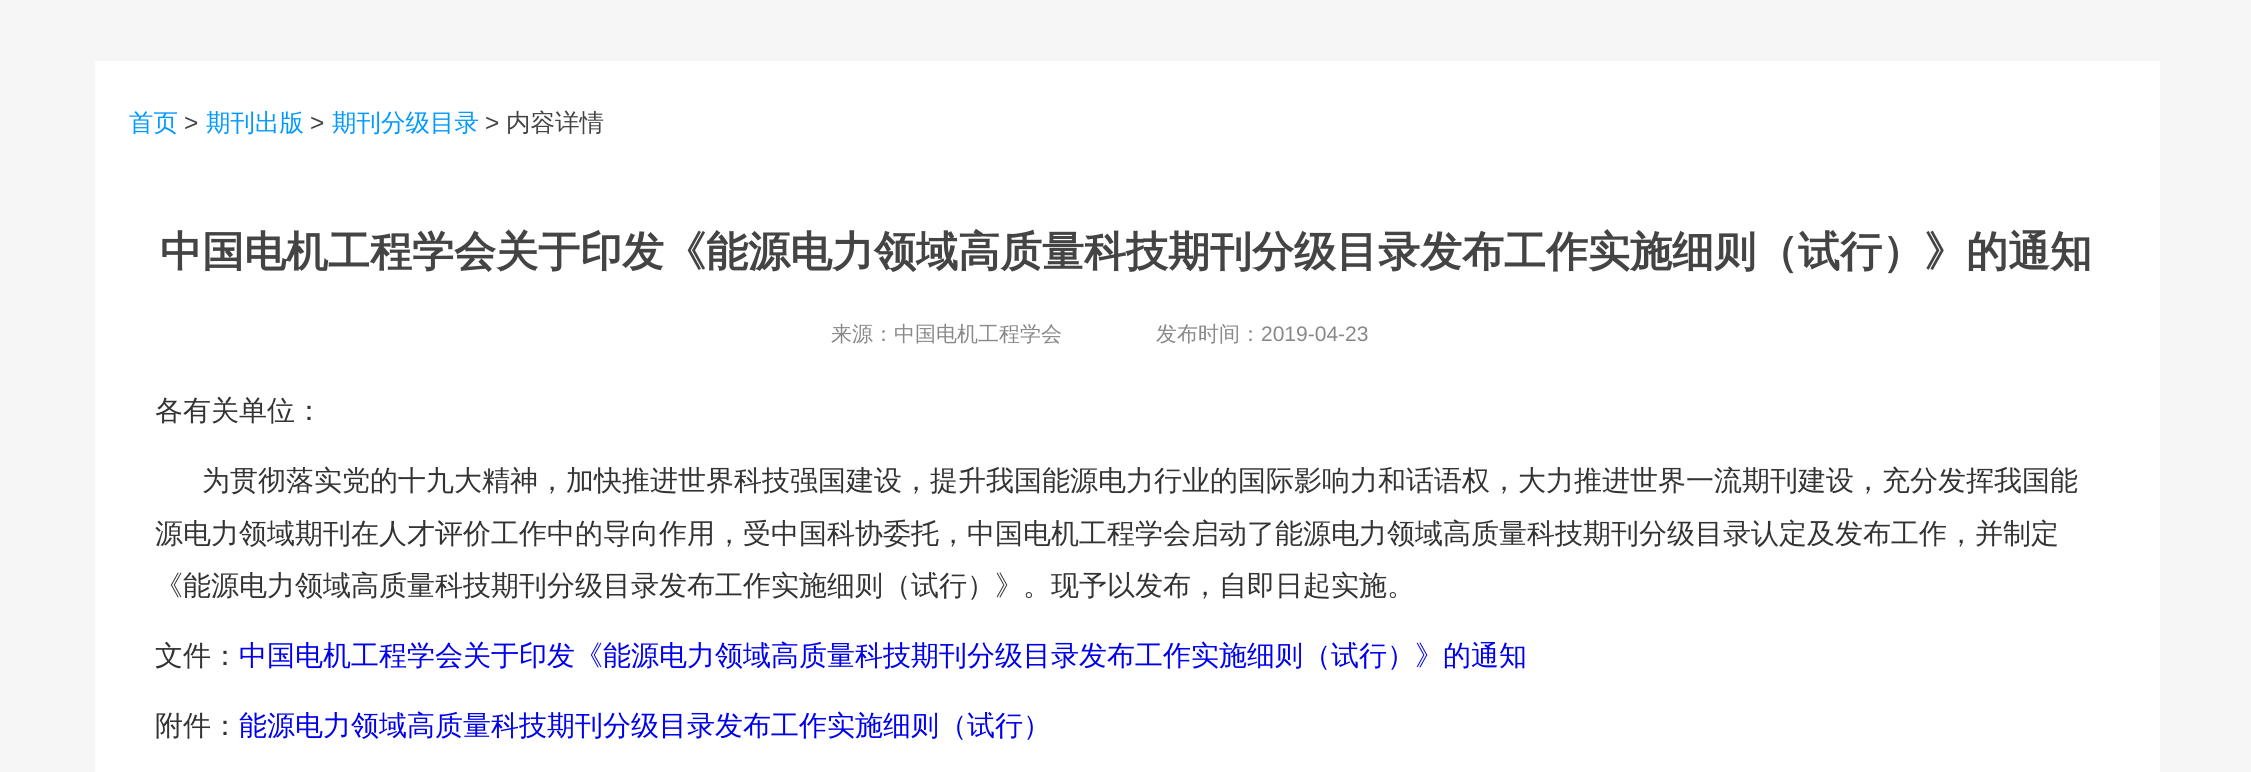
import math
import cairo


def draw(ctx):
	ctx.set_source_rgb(0.961, 0.961, 0.961)
	ctx.paint()
	ctx.set_source_rgb(1, 1, 1)
	ctx.rectangle(95, 61, 2065, 711)
	ctx.fill()
	ctx.select_font_face('WenQuanYi Zen Hei Medium')
	ctx.set_font_size(24.5)
	ctx.set_source_rgb(0, 0.6, 1)
	ctx.move_to(129, 131)
	ctx.show_text('首页')
	ctx.select_font_face('Liberation Sans')
	ctx.set_source_rgb(0.267, 0.267, 0.267)
	ctx.move_to(184, 131)
	ctx.show_text('>')
	ctx.select_font_face('WenQuanYi Zen Hei Medium')
	ctx.set_source_rgb(0, 0.6, 1)
	ctx.move_to(206, 131)
	ctx.show_text('期刊出版')
	ctx.select_font_face('Liberation Sans')
	ctx.set_source_rgb(0.267, 0.267, 0.267)
	ctx.move_to(310, 131)
	ctx.show_text('>')
	ctx.select_font_face('WenQuanYi Zen Hei Medium')
	ctx.set_source_rgb(0, 0.6, 1)
	ctx.move_to(332, 131)
	ctx.show_text('期刊分级目录')
	ctx.select_font_face('Liberation Sans')
	ctx.set_source_rgb(0.267, 0.267, 0.267)
	ctx.move_to(485, 131)
	ctx.show_text('>')
	ctx.select_font_face('WenQuanYi Zen Hei Medium')
	ctx.move_to(506, 131)
	ctx.show_text('内容详情')
	ctx.select_font_face('WenQuanYi Zen Hei', cairo.FONT_SLANT_NORMAL, cairo.FONT_WEIGHT_BOLD)
	ctx.set_font_size(42)
	ctx.move_to(160, 266)
	ctx.show_text('中国电机工程学会关于印发《能源电力领域高质量科技期刊分级目录发布工作实施细则（试行）》的通知')
	ctx.select_font_face('WenQuanYi Zen Hei Medium')
	ctx.set_font_size(21)
	ctx.set_source_rgb(0.533, 0.533, 0.533)
	ctx.move_to(831, 341)
	ctx.show_text('来源：中国电机工程学会')
	ctx.move_to(1156, 341)
	ctx.show_text('发布时间：')
	ctx.select_font_face('Liberation Sans')
	ctx.move_to(1261, 341)
	ctx.show_text('2019-04-23')
	ctx.select_font_face('WenQuanYi Zen Hei Medium')
	ctx.set_font_size(28)
	ctx.set_source_rgb(0.2, 0.2, 0.2)
	for x, y, s in [
		(155, 420, '各有关单位：'),
		(202, 490, '为贯彻落实党的十九大精神，加快推进世界科技强国建设，提升我国能源电力行业的国际影响力和话语权，大力推进世界一流期刊建设，充分发挥我国能'),
		(155, 543, '源电力领域期刊在人才评价工作中的导向作用，受中国科协委托，中国电机工程学会启动了能源电力领域高质量科技期刊分级目录认定及发布工作，并制定'),
		(155, 595, '《能源电力领域高质量科技期刊分级目录发布工作实施细则（试行）》。现予以发布，自即日起实施。'),
		(155, 665, '文件：'),
	]:
		ctx.move_to(x, y)
		ctx.show_text(s)
	ctx.set_source_rgb(0, 0, 0.933)
	ctx.move_to(239, 665)
	ctx.show_text('中国电机工程学会关于印发《能源电力领域高质量科技期刊分级目录发布工作实施细则（试行）》的通知')
	ctx.set_source_rgb(0.2, 0.2, 0.2)
	ctx.move_to(155, 735)
	ctx.show_text('附件：')
	ctx.set_source_rgb(0, 0, 0.933)
	ctx.move_to(239, 735)
	ctx.show_text('能源电力领域高质量科技期刊分级目录发布工作实施细则（试行）')


surface = cairo.ImageSurface(cairo.FORMAT_RGB24, 2251, 772)
ctx = cairo.Context(surface)
options = cairo.FontOptions()
options.set_hint_metrics(cairo.HINT_METRICS_OFF)
options.set_hint_style(cairo.HINT_STYLE_NONE)
ctx.set_font_options(options)
ctx.set_miter_limit(4)
draw(ctx)
surface.write_to_png('image.png')
